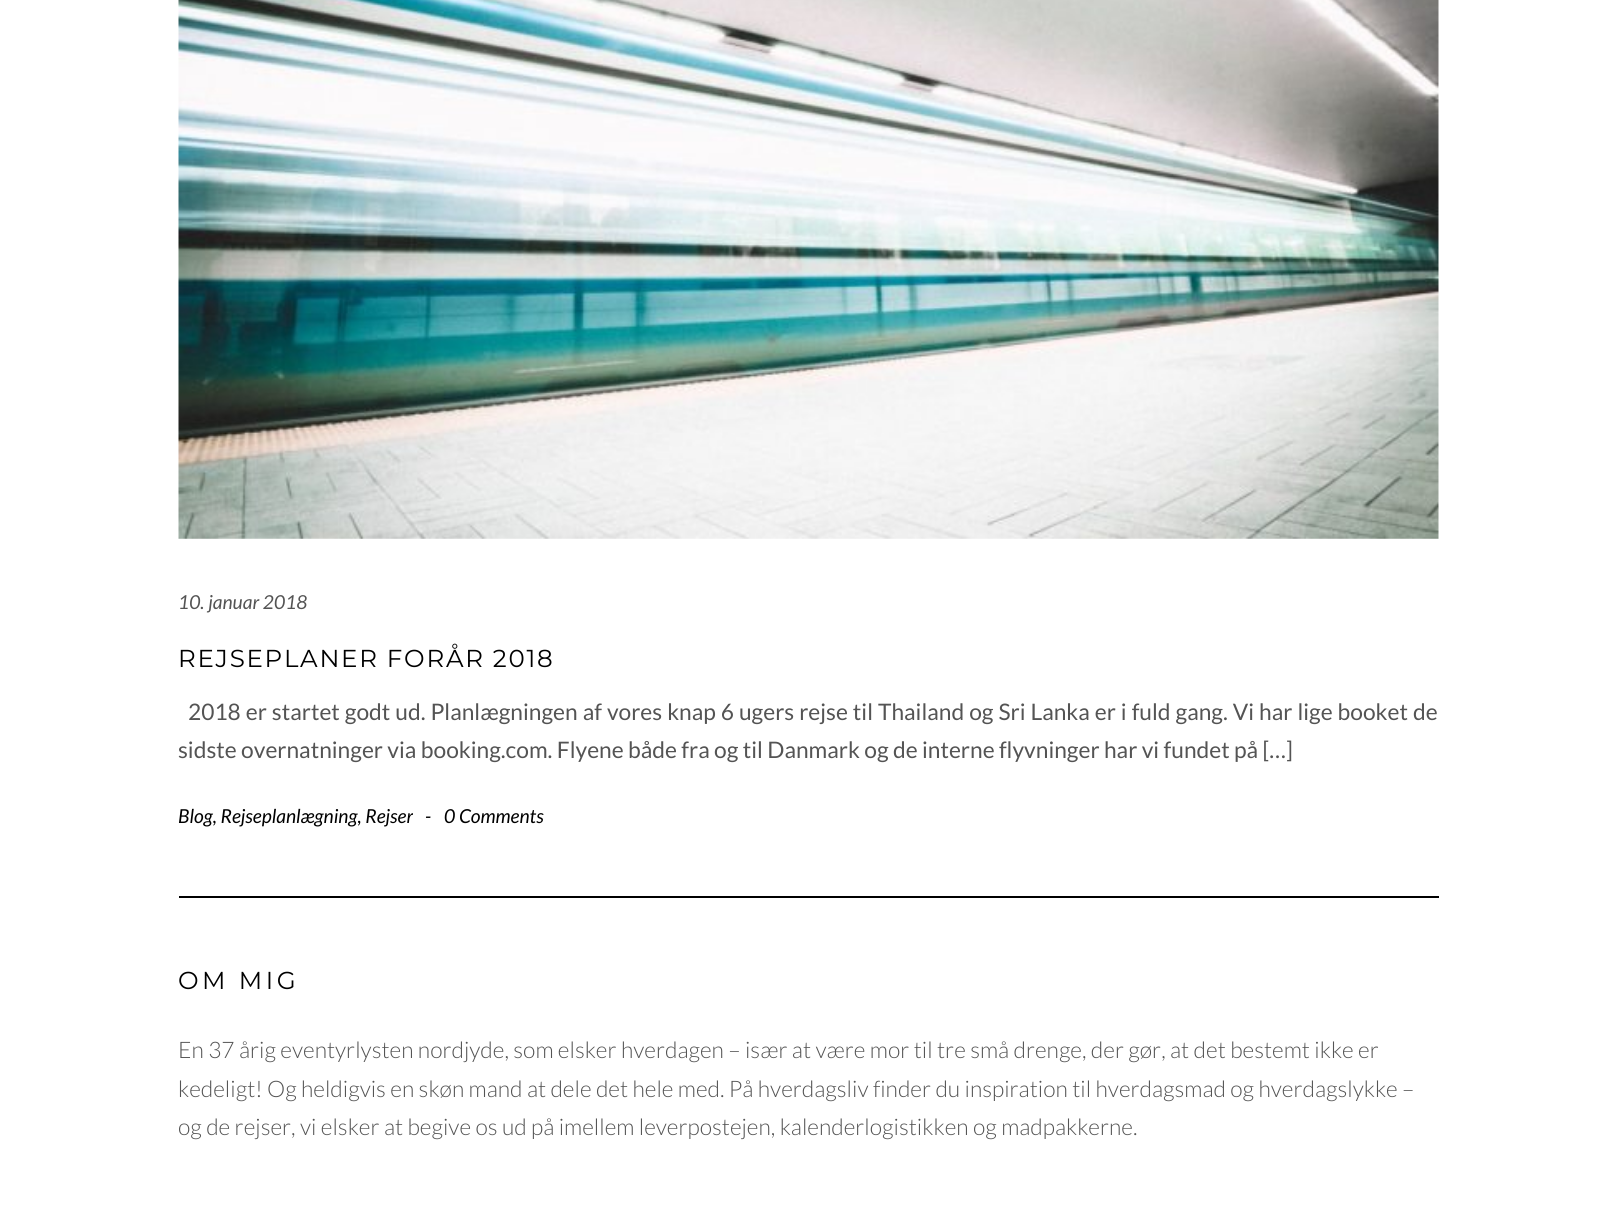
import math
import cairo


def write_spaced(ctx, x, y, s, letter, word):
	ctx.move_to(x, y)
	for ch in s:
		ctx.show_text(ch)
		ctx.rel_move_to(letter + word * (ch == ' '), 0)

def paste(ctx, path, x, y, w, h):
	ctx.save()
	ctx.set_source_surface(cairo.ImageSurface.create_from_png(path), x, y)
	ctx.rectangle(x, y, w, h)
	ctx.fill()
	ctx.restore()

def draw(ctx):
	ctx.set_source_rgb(1, 1, 1)
	ctx.paint()
	paste(ctx, 'media/1.png', 178, 0, 1261, 539)
	ctx.select_font_face('Lato', cairo.FONT_SLANT_ITALIC)
	ctx.set_font_size(19.25)
	ctx.set_source_rgb(0.329, 0.329, 0.329)
	ctx.move_to(178, 609)
	ctx.show_text('10. januar 2018')
	ctx.select_font_face('Montserrat')
	ctx.set_font_size(24.5)
	ctx.set_source_rgb(0, 0, 0)
	write_spaced(ctx, 178, 667, 'REJSEPLANER FORÅR 2018', 1.75, 0)
	ctx.select_font_face('Lato')
	ctx.set_font_size(22.75)
	ctx.set_source_rgb(0.329, 0.329, 0.329)
	write_spaced(ctx, 188, 720, '2018 er startet godt ud. Planlægningen af vores knap 6 ugers rejse til Thailand og Sri Lanka er i fuld gang. Vi har lige booket de', 0, 0.6)
	ctx.move_to(178, 758)
	ctx.show_text('sidste overnatninger via booking.com. Flyene både fra og til Danmark og de interne flyvninger har vi fundet på […]')
	ctx.select_font_face('Lato', cairo.FONT_SLANT_ITALIC)
	ctx.set_font_size(19.25)
	ctx.set_source_rgb(0, 0, 0)
	for x, y, s in [
		(178, 823, 'Blog, Rejseplanlægning, Rejser'),
		(425, 823, '-'),
		(444, 823, '0 Comments'),
	]:
		ctx.move_to(x, y)
		ctx.show_text(s)
	ctx.rectangle(179, 896, 1260, 2)
	ctx.fill()
	ctx.select_font_face('Montserrat')
	ctx.set_font_size(24.5)
	write_spaced(ctx, 178, 989, 'OM MIG', 3.5, 0)
	ctx.select_font_face('Lato Light')
	ctx.set_font_size(22.75)
	ctx.set_source_rgb(0.329, 0.329, 0.329)
	for x, y, s in [
		(178, 1058, 'En 37 årig eventyrlysten nordjyde, som elsker hverdagen – især at være mor til tre små drenge, der gør, at det bestemt ikke er'),
		(178, 1097, 'kedeligt! Og heldigvis en skøn mand at dele det hele med. På hverdagsliv finder du inspiration til hverdagsmad og hverdagslykke –'),
		(178, 1135, 'og de rejser, vi elsker at begive os ud på imellem leverpostejen, kalenderlogistikken og madpakkerne.'),
	]:
		ctx.move_to(x, y)
		ctx.show_text(s)


surface = cairo.ImageSurface(cairo.FORMAT_RGB24, 1614, 1220)
ctx = cairo.Context(surface)
options = cairo.FontOptions()
options.set_hint_metrics(cairo.HINT_METRICS_OFF)
options.set_hint_style(cairo.HINT_STYLE_NONE)
ctx.set_font_options(options)
ctx.set_miter_limit(4)
draw(ctx)
surface.write_to_png('image.png')
